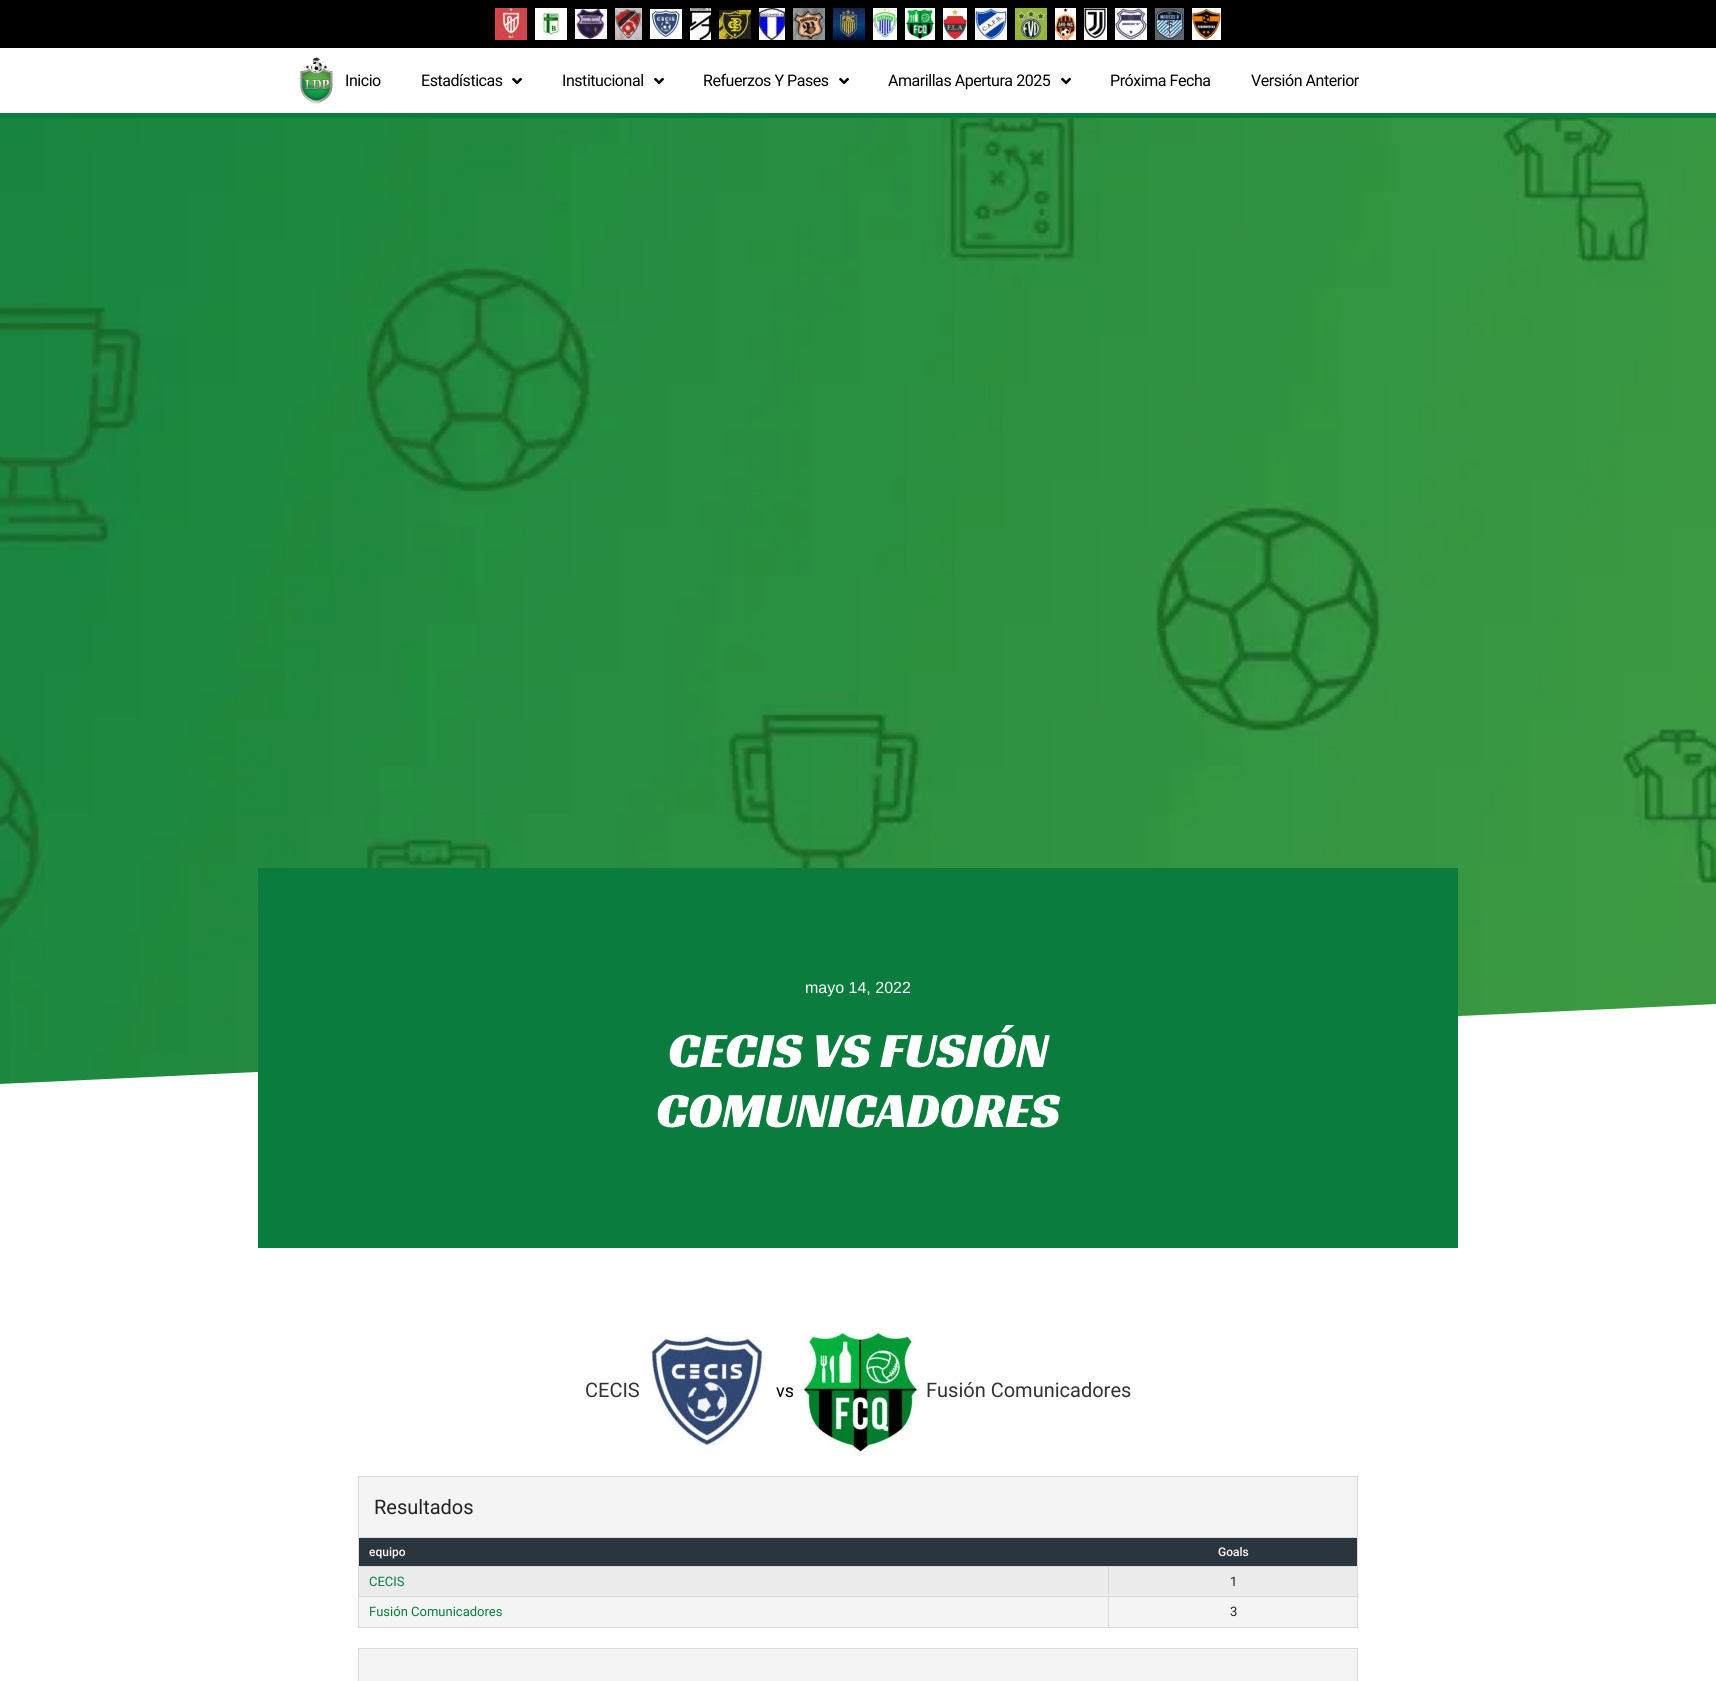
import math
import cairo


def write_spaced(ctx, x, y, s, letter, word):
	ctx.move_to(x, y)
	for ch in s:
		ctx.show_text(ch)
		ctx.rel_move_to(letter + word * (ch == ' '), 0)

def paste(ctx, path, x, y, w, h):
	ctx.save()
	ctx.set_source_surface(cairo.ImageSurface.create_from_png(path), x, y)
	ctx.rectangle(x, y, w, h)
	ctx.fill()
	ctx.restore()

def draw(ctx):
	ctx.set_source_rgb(1, 1, 1)
	ctx.paint()
	ctx.set_source_rgb(0, 0, 0)
	ctx.rectangle(0, 0, 1716, 48)
	ctx.fill()
	paste(ctx, 'media/1.png', 495, 8, 32, 32)
	paste(ctx, 'media/2.png', 535, 8, 32, 32)
	paste(ctx, 'media/3.png', 575, 9, 32, 30)
	paste(ctx, 'media/4.png', 615, 8, 27, 32)
	paste(ctx, 'media/5.png', 650, 9, 32, 30)
	paste(ctx, 'media/6.png', 690, 8, 21, 32)
	paste(ctx, 'media/7.png', 719, 10, 32, 29)
	paste(ctx, 'media/8.png', 759, 8, 26, 32)
	paste(ctx, 'media/9.png', 793, 8, 32, 32)
	paste(ctx, 'media/10.png', 833, 8, 32, 32)
	paste(ctx, 'media/11.png', 873, 8, 24, 32)
	paste(ctx, 'media/12.png', 905, 8, 30, 32)
	paste(ctx, 'media/13.png', 943, 8, 24, 32)
	paste(ctx, 'media/14.png', 975, 8, 32, 32)
	paste(ctx, 'media/15.png', 1015, 8, 32, 32)
	paste(ctx, 'media/16.png', 1055, 8, 21, 32)
	paste(ctx, 'media/17.png', 1084, 8, 23, 32)
	paste(ctx, 'media/18.png', 1115, 8, 32, 32)
	paste(ctx, 'media/19.png', 1155, 8, 29, 32)
	paste(ctx, 'media/20.png', 1192, 8, 29, 32)
	ctx.set_source_rgb(0.039, 0.486, 0.243)
	ctx.rectangle(0, 113, 1716, 5)
	ctx.fill()
	paste(ctx, 'media/21.png', 297, 57, 38, 47)
	ctx.select_font_face('Roboto')
	ctx.set_font_size(16)
	ctx.set_source_rgb(0, 0, 0)
	write_spaced(ctx, 345, 86, 'Inicio', -0.45, 0)
	write_spaced(ctx, 421, 86, 'Estadísticas', -0.45, 0)
	paste(ctx, 'media/22.png', 512, 77, 10, 8)
	write_spaced(ctx, 562, 86, 'Institucional', -0.45, 0)
	paste(ctx, 'media/22.png', 654, 77, 10, 8)
	write_spaced(ctx, 703, 86, 'Refuerzos Y Pases', -0.45, 0)
	paste(ctx, 'media/22.png', 839, 77, 10, 8)
	write_spaced(ctx, 888, 86, 'Amarillas Apertura 2025', -0.45, 0)
	paste(ctx, 'media/22.png', 1061, 77, 10, 8)
	write_spaced(ctx, 1110, 86, 'Próxima Fecha', -0.45, 0)
	write_spaced(ctx, 1251, 86, 'Versión Anterior', -0.45, 0)
	paste(ctx, 'media/23.png', 0, 118, 1716, 966)
	ctx.set_source_rgb(1, 1, 1)
	ctx.new_path()
	ctx.move_to(-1, 1084)
	ctx.line_to(-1, 1089)
	ctx.line_to(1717, 1089)
	ctx.line_to(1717, 1004)
	ctx.close_path()
	ctx.fill()
	ctx.set_source_rgb(0.039, 0.486, 0.243)
	ctx.rectangle(258, 868, 1200, 380)
	ctx.fill()
	ctx.select_font_face('Liberation Sans')
	ctx.set_source_rgb(1, 1, 1)
	ctx.move_to(805, 993)
	ctx.show_text('mayo 14, 2022')
	ctx.select_font_face('Racing Sans One')
	ctx.set_font_size(50)
	ctx.move_to(668, 1067)
	ctx.show_text('CECIS VS FUSIÓN')
	ctx.move_to(656, 1127)
	ctx.show_text('COMUNICADORES')
	ctx.select_font_face('Roboto')
	ctx.set_font_size(20)
	ctx.set_source_rgb(0.2, 0.2, 0.2)
	ctx.move_to(585, 1397)
	ctx.show_text('CECIS')
	paste(ctx, 'media/24.png', 650, 1332, 114, 119)
	ctx.set_font_size(18)
	ctx.set_source_rgb(0, 0, 0)
	ctx.move_to(776, 1397)
	ctx.show_text('vs')
	paste(ctx, 'media/25.png', 799, 1328, 120, 128)
	ctx.set_font_size(20)
	ctx.set_source_rgb(0.2, 0.2, 0.2)
	ctx.move_to(926, 1397)
	ctx.show_text('Fusión Comunicadores')
	ctx.set_source_rgb(0.957, 0.957, 0.957)
	ctx.rectangle(359, 1477, 998, 60)
	ctx.fill()
	ctx.set_source_rgb(0.855, 0.855, 0.855)
	ctx.rectangle(358, 1476, 1000, 1)
	ctx.rectangle(1357, 1476, 1, 61)
	ctx.rectangle(358, 1476, 1, 61)
	ctx.fill()
	ctx.set_source_rgb(0.133, 0.133, 0.133)
	ctx.move_to(374, 1514)
	ctx.show_text('Resultados')
	ctx.set_source_rgb(0.957, 0.957, 0.957)
	ctx.rectangle(359, 1597, 998, 30)
	ctx.fill()
	ctx.set_source_rgb(0.855, 0.855, 0.855)
	ctx.rectangle(358, 1537, 1000, 1)
	ctx.rectangle(1357, 1537, 1, 91)
	ctx.rectangle(358, 1627, 1000, 1)
	ctx.rectangle(358, 1537, 1, 91)
	ctx.fill()
	ctx.set_source_rgb(0.169, 0.208, 0.243)
	ctx.rectangle(359, 1538, 998, 28)
	ctx.fill()
	ctx.select_font_face('Roboto Medium')
	ctx.set_font_size(12)
	ctx.set_source_rgb(1, 1, 1)
	ctx.move_to(369, 1556)
	ctx.show_text('equipo')
	ctx.move_to(1218, 1556)
	ctx.show_text('Goals')
	ctx.set_source_rgb(0.925, 0.925, 0.925)
	ctx.rectangle(359, 1567, 749, 29)
	ctx.fill()
	ctx.set_source_rgb(0.855, 0.855, 0.855)
	ctx.rectangle(1108, 1566, 250, 1)
	ctx.rectangle(1108, 1596, 250, 1)
	ctx.rectangle(1108, 1596, 1, 32)
	ctx.rectangle(358, 1596, 751, 1)
	ctx.rectangle(1108, 1566, 1, 31)
	ctx.rectangle(358, 1566, 751, 1)
	ctx.fill()
	ctx.select_font_face('Roboto')
	ctx.set_font_size(13)
	ctx.set_source_rgb(0.039, 0.486, 0.243)
	ctx.move_to(369, 1586)
	ctx.show_text('CECIS')
	ctx.set_source_rgb(0.925, 0.925, 0.925)
	ctx.rectangle(1109, 1567, 248, 29)
	ctx.fill()
	ctx.set_source_rgb(0.133, 0.133, 0.133)
	ctx.move_to(1230, 1586)
	ctx.show_text('1')
	ctx.set_source_rgb(0.039, 0.486, 0.243)
	ctx.move_to(369, 1616)
	ctx.show_text('Fusión Comunicadores')
	ctx.set_source_rgb(0.133, 0.133, 0.133)
	ctx.move_to(1230, 1616)
	ctx.show_text('3')
	ctx.set_source_rgb(0.957, 0.957, 0.957)
	ctx.rectangle(359, 1649, 998, 32)
	ctx.fill()
	ctx.set_source_rgb(0.855, 0.855, 0.855)
	ctx.rectangle(358, 1648, 1000, 1)
	ctx.rectangle(1357, 1648, 1, 33)
	ctx.rectangle(358, 1648, 1, 33)
	ctx.fill()


surface = cairo.ImageSurface(cairo.FORMAT_RGB24, 1716, 1681)
ctx = cairo.Context(surface)
options = cairo.FontOptions()
options.set_hint_metrics(cairo.HINT_METRICS_OFF)
options.set_hint_style(cairo.HINT_STYLE_NONE)
ctx.set_font_options(options)
ctx.set_miter_limit(4)
draw(ctx)
surface.write_to_png('image.png')
